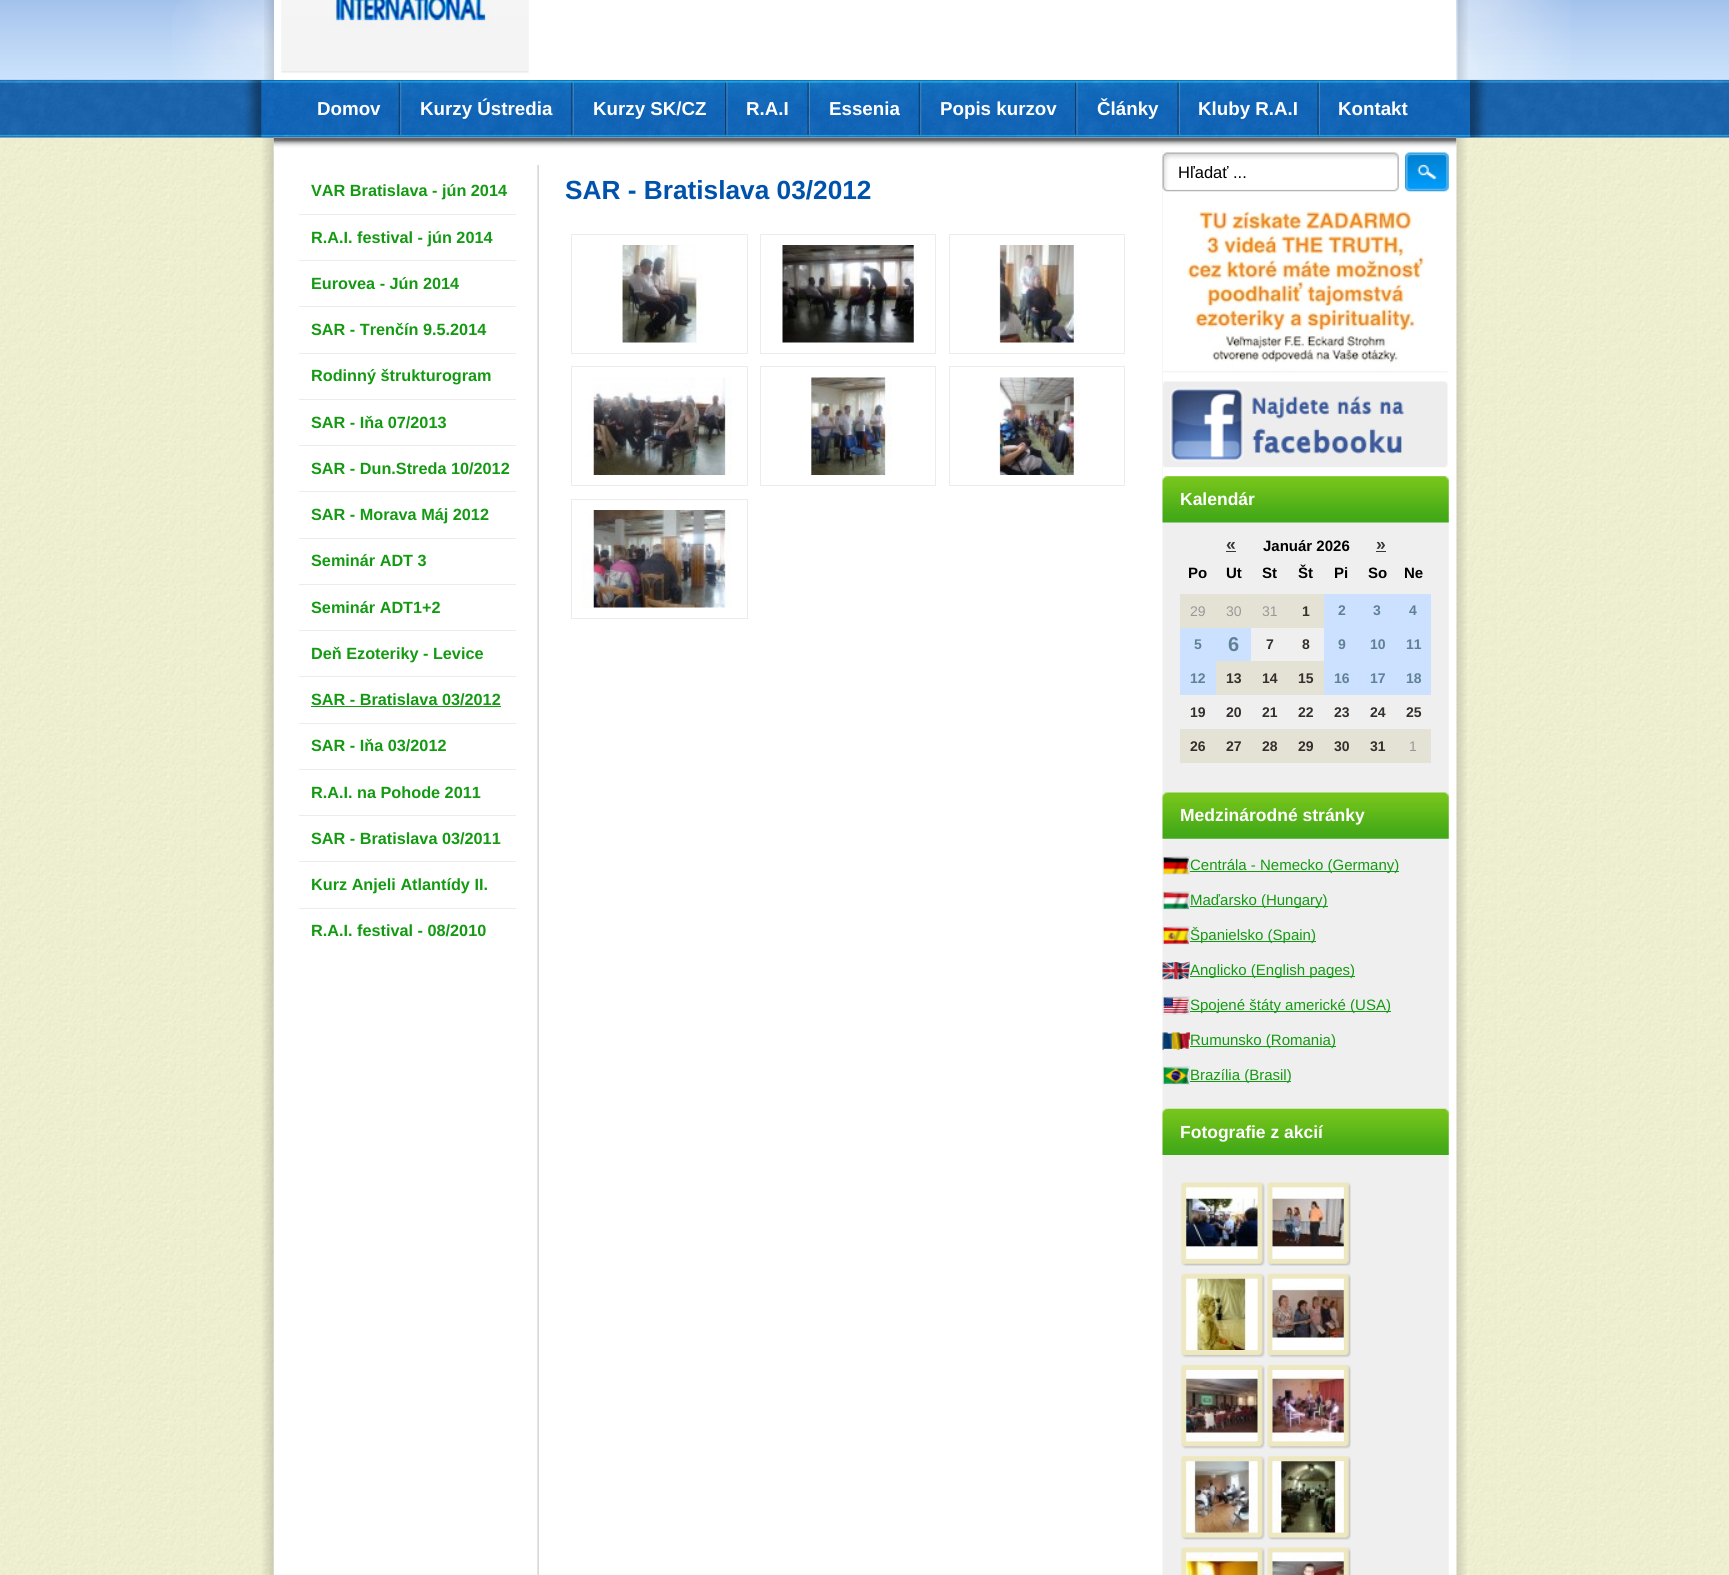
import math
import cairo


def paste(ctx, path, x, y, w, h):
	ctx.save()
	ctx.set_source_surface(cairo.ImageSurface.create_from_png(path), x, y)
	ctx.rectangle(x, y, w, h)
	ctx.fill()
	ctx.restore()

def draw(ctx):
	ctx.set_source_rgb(1, 1, 1)
	ctx.paint()
	paste(ctx, 'media/1.png', 0, 137, 1729, 1438)
	paste(ctx, 'media/2.png', 0, 0, 1729, 138)
	paste(ctx, 'media/3.png', 172, 0, 1399, 80)
	paste(ctx, 'media/4.png', 264, 0, 1204, 80)
	ctx.set_source_rgb(1, 1, 1)
	ctx.rectangle(274, 0, 1182, 80)
	ctx.fill()
	paste(ctx, 'media/5.png', 281, 0, 248, 73)
	paste(ctx, 'media/7.png', 261, 80, 1209, 58)
	paste(ctx, 'media/6.png', 244, 80, 18, 58)
	ctx.select_font_face('Liberation Sans', cairo.FONT_SLANT_NORMAL, cairo.FONT_WEIGHT_BOLD)
	ctx.set_font_size(18.75)
	ctx.move_to(317, 115)
	ctx.show_text('Domov')
	paste(ctx, 'media/8.png', 398, 80, 4, 58)
	ctx.move_to(420, 115)
	ctx.show_text('Kurzy Ústredia')
	paste(ctx, 'media/9.png', 571, 81, 3, 57)
	ctx.move_to(593, 115)
	ctx.show_text('Kurzy SK/CZ')
	paste(ctx, 'media/10.png', 725, 81, 3, 57)
	ctx.move_to(746, 115)
	ctx.show_text('R.A.I')
	paste(ctx, 'media/11.png', 807, 80, 3, 58)
	ctx.move_to(829, 115)
	ctx.show_text('Essenia')
	paste(ctx, 'media/12.png', 918, 82, 4, 56)
	ctx.move_to(940, 115)
	ctx.show_text('Popis kurzov')
	paste(ctx, 'media/13.png', 1075, 80, 3, 58)
	ctx.move_to(1097, 115)
	ctx.show_text('Články')
	paste(ctx, 'media/14.png', 1177, 81, 3, 57)
	ctx.move_to(1198, 115)
	ctx.show_text('Kluby R.A.I')
	paste(ctx, 'media/15.png', 1317, 80, 3, 58)
	ctx.move_to(1338, 115)
	ctx.show_text('Kontakt')
	paste(ctx, 'media/16.png', 1470, 80, 17, 58)
	paste(ctx, 'media/17.png', 262, 137, 1205, 1438)
	paste(ctx, 'media/18.png', 273, 137, 1184, 13)
	paste(ctx, 'media/19.png', 1162, 150, 295, 1425)
	ctx.set_font_size(16.25)
	ctx.set_source_rgb(0.082, 0.604, 0.071)
	ctx.move_to(311, 196)
	ctx.show_text('VAR Bratislava - jún 2014')
	ctx.set_source_rgb(0.925, 0.925, 0.925)
	ctx.rectangle(299, 214, 217, 1)
	ctx.fill()
	ctx.set_source_rgb(0.082, 0.604, 0.071)
	ctx.move_to(311, 243)
	ctx.show_text('R.A.I. festival - jún 2014')
	ctx.set_source_rgb(0.925, 0.925, 0.925)
	ctx.rectangle(299, 260, 217, 1)
	ctx.fill()
	ctx.set_source_rgb(0.082, 0.604, 0.071)
	ctx.move_to(311, 289)
	ctx.show_text('Eurovea - Jún 2014')
	ctx.set_source_rgb(0.925, 0.925, 0.925)
	ctx.rectangle(299, 306, 217, 1)
	ctx.fill()
	ctx.set_source_rgb(0.082, 0.604, 0.071)
	ctx.move_to(311, 335)
	ctx.show_text('SAR - Trenčín 9.5.2014')
	ctx.set_source_rgb(0.925, 0.925, 0.925)
	ctx.rectangle(299, 353, 217, 1)
	ctx.fill()
	ctx.set_source_rgb(0.082, 0.604, 0.071)
	ctx.move_to(311, 381)
	ctx.show_text('Rodinný štrukturogram')
	ctx.set_source_rgb(0.925, 0.925, 0.925)
	ctx.rectangle(299, 399, 217, 1)
	ctx.fill()
	ctx.set_source_rgb(0.082, 0.604, 0.071)
	ctx.move_to(311, 428)
	ctx.show_text('SAR - Iňa 07/2013')
	ctx.set_source_rgb(0.925, 0.925, 0.925)
	ctx.rectangle(299, 445, 217, 1)
	ctx.fill()
	ctx.set_source_rgb(0.082, 0.604, 0.071)
	ctx.move_to(311, 474)
	ctx.show_text('SAR - Dun.Streda 10/2012')
	ctx.set_source_rgb(0.925, 0.925, 0.925)
	ctx.rectangle(299, 491, 217, 1)
	ctx.fill()
	ctx.set_source_rgb(0.082, 0.604, 0.071)
	ctx.move_to(311, 520)
	ctx.show_text('SAR - Morava Máj 2012')
	ctx.set_source_rgb(0.925, 0.925, 0.925)
	ctx.rectangle(299, 538, 217, 1)
	ctx.fill()
	ctx.set_source_rgb(0.082, 0.604, 0.071)
	ctx.move_to(311, 566)
	ctx.show_text('Seminár ADT 3')
	ctx.set_source_rgb(0.925, 0.925, 0.925)
	ctx.rectangle(299, 584, 217, 1)
	ctx.fill()
	ctx.set_source_rgb(0.082, 0.604, 0.071)
	ctx.move_to(311, 613)
	ctx.show_text('Seminár ADT1+2')
	ctx.set_source_rgb(0.925, 0.925, 0.925)
	ctx.rectangle(299, 630, 217, 1)
	ctx.fill()
	ctx.set_source_rgb(0.082, 0.604, 0.071)
	ctx.move_to(311, 659)
	ctx.show_text('Deň Ezoteriky - Levice')
	ctx.set_source_rgb(0.925, 0.925, 0.925)
	ctx.rectangle(299, 676, 217, 1)
	ctx.fill()
	ctx.set_source_rgb(0.082, 0.604, 0.071)
	ctx.move_to(311, 705)
	ctx.show_text('SAR - Bratislava 03/2012')
	ctx.rectangle(311, 706, 190, 1)
	ctx.fill()
	ctx.set_source_rgb(0.925, 0.925, 0.925)
	ctx.rectangle(299, 723, 217, 1)
	ctx.fill()
	ctx.set_source_rgb(0.082, 0.604, 0.071)
	ctx.move_to(311, 751)
	ctx.show_text('SAR - Iňa 03/2012')
	ctx.set_source_rgb(0.925, 0.925, 0.925)
	ctx.rectangle(299, 769, 217, 1)
	ctx.fill()
	ctx.set_source_rgb(0.082, 0.604, 0.071)
	ctx.move_to(311, 798)
	ctx.show_text('R.A.I. na Pohode 2011')
	ctx.set_source_rgb(0.925, 0.925, 0.925)
	ctx.rectangle(299, 815, 217, 1)
	ctx.fill()
	ctx.set_source_rgb(0.082, 0.604, 0.071)
	ctx.move_to(311, 844)
	ctx.show_text('SAR - Bratislava 03/2011')
	ctx.set_source_rgb(0.925, 0.925, 0.925)
	ctx.rectangle(299, 861, 217, 1)
	ctx.fill()
	ctx.set_source_rgb(0.082, 0.604, 0.071)
	ctx.move_to(311, 890)
	ctx.show_text('Kurz Anjeli Atlantídy II.')
	ctx.set_source_rgb(0.925, 0.925, 0.925)
	ctx.rectangle(299, 908, 217, 1)
	ctx.fill()
	ctx.set_source_rgb(0.082, 0.604, 0.071)
	ctx.move_to(311, 936)
	ctx.show_text('R.A.I. festival - 08/2010')
	paste(ctx, 'media/20.png', 537, 165, 2, 1410)
	ctx.set_font_size(26.25)
	ctx.set_source_rgb(0, 0.325, 0.675)
	ctx.move_to(565, 199)
	ctx.show_text('SAR - Bratislava 03/2012')
	ctx.rectangle(571.5, 234.5, 176, 119)
	ctx.set_source_rgb(0.925, 0.925, 0.925)
	ctx.set_line_width(1)
	ctx.stroke()
	ctx.rectangle(760.5, 234.5, 175, 119)
	ctx.stroke()
	ctx.rectangle(949.5, 234.5, 175, 119)
	ctx.stroke()
	paste(ctx, 'media/21.png', 622, 245, 80, 98)
	paste(ctx, 'media/22.png', 781, 245, 136, 98)
	paste(ctx, 'media/23.png', 999, 245, 81, 98)
	ctx.rectangle(571.5, 366.5, 176, 119)
	ctx.stroke()
	ctx.rectangle(760.5, 366.5, 175, 119)
	ctx.stroke()
	ctx.rectangle(949.5, 366.5, 175, 119)
	ctx.stroke()
	paste(ctx, 'media/24.png', 587, 377, 146, 98)
	paste(ctx, 'media/25.png', 810, 377, 82, 98)
	paste(ctx, 'media/26.png', 999, 377, 81, 98)
	ctx.rectangle(571.5, 499.5, 176, 119)
	ctx.stroke()
	paste(ctx, 'media/27.png', 582, 510, 149, 98)
	ctx.set_source_rgb(1, 1, 1)
	ctx.rectangle(1163, 150, 286, 326)
	ctx.fill()
	paste(ctx, 'media/28.png', 1162, 152, 237, 40)
	ctx.select_font_face('Liberation Sans')
	ctx.set_font_size(16.5)
	ctx.set_source_rgb(0, 0, 0)
	ctx.move_to(1178, 178)
	ctx.show_text('Hľadať ...')
	paste(ctx, 'media/29.png', 1405, 152, 44, 40)
	paste(ctx, 'media/30.png', 1163, 211, 285, 162)
	paste(ctx, 'media/31.png', 1163, 381, 285, 87)
	paste(ctx, 'media/32.png', 1162, 476, 287, 47)
	ctx.select_font_face('Liberation Sans', cairo.FONT_SLANT_NORMAL, cairo.FONT_WEIGHT_BOLD)
	ctx.set_font_size(17.5)
	ctx.set_source_rgb(1, 1, 1)
	ctx.move_to(1180, 505)
	ctx.show_text('Kalendár')
	ctx.set_source_rgb(0.216, 0.216, 0.216)
	ctx.move_to(1226, 550)
	ctx.show_text('«')
	ctx.rectangle(1226, 551, 10, 1)
	ctx.fill()
	ctx.set_font_size(15)
	ctx.set_source_rgb(0, 0, 0)
	ctx.move_to(1263, 551)
	ctx.show_text('Január 2026')
	ctx.set_font_size(17.5)
	ctx.set_source_rgb(0.216, 0.216, 0.216)
	ctx.move_to(1376, 550)
	ctx.show_text('»')
	ctx.rectangle(1376, 551, 10, 1)
	ctx.fill()
	ctx.set_font_size(15)
	ctx.set_source_rgb(0, 0, 0)
	for x, y, s in [
		(1188, 578, 'Po'),
		(1226, 578, 'Ut'),
		(1262, 578, 'St'),
		(1298, 578, 'Št'),
		(1334, 578, 'Pi'),
		(1368, 578, 'So'),
		(1404, 578, 'Ne'),
	]:
		ctx.move_to(x, y)
		ctx.show_text(s)
	ctx.set_source_rgb(0.894, 0.886, 0.835)
	ctx.rectangle(1180, 594, 144, 34)
	ctx.fill()
	ctx.select_font_face('Liberation Sans')
	ctx.set_font_size(14)
	ctx.set_source_rgb(0.596, 0.596, 0.596)
	for x, y, s in [
		(1190, 616, '29'),
		(1226, 616, '30'),
		(1262, 616, '31'),
	]:
		ctx.move_to(x, y)
		ctx.show_text(s)
	ctx.select_font_face('Liberation Sans', cairo.FONT_SLANT_NORMAL, cairo.FONT_WEIGHT_BOLD)
	ctx.set_source_rgb(0.204, 0.184, 0.173)
	ctx.move_to(1302, 616)
	ctx.show_text('1')
	ctx.set_source_rgb(0.8, 0.878, 1)
	ctx.rectangle(1324, 594, 107, 34)
	ctx.fill()
	ctx.set_source_rgb(0.376, 0.506, 0.58)
	for x, y, s in [
		(1338, 615, '2'),
		(1373, 615, '3'),
		(1409, 615, '4'),
	]:
		ctx.move_to(x, y)
		ctx.show_text(s)
	ctx.set_source_rgb(0.8, 0.878, 1)
	ctx.rectangle(1180, 628, 71, 33)
	ctx.fill()
	ctx.set_source_rgb(0.376, 0.506, 0.58)
	ctx.move_to(1194, 649)
	ctx.show_text('5')
	ctx.set_font_size(20)
	ctx.move_to(1228, 651)
	ctx.show_text('6')
	ctx.set_font_size(14)
	ctx.set_source_rgb(0.204, 0.184, 0.173)
	ctx.move_to(1266, 649)
	ctx.show_text('7')
	ctx.move_to(1302, 649)
	ctx.show_text('8')
	ctx.set_source_rgb(0.8, 0.878, 1)
	ctx.rectangle(1324, 628, 107, 33)
	ctx.fill()
	ctx.set_source_rgb(0.376, 0.506, 0.58)
	for x, y, s in [
		(1338, 649, '9'),
		(1370, 649, '10'),
		(1406, 649, '11'),
	]:
		ctx.move_to(x, y)
		ctx.show_text(s)
	ctx.set_source_rgb(0.8, 0.878, 1)
	ctx.rectangle(1180, 661, 36, 34)
	ctx.fill()
	ctx.set_source_rgb(0.376, 0.506, 0.58)
	ctx.move_to(1190, 683)
	ctx.show_text('12')
	ctx.set_source_rgb(0.894, 0.886, 0.835)
	ctx.rectangle(1216, 661, 108, 34)
	ctx.fill()
	ctx.set_source_rgb(0.204, 0.184, 0.173)
	for x, y, s in [
		(1226, 683, '13'),
		(1262, 683, '14'),
		(1298, 683, '15'),
	]:
		ctx.move_to(x, y)
		ctx.show_text(s)
	ctx.set_source_rgb(0.8, 0.878, 1)
	ctx.rectangle(1324, 661, 107, 34)
	ctx.fill()
	ctx.set_source_rgb(0.376, 0.506, 0.58)
	for x, y, s in [
		(1334, 683, '16'),
		(1370, 683, '17'),
		(1406, 683, '18'),
	]:
		ctx.move_to(x, y)
		ctx.show_text(s)
	ctx.set_source_rgb(0.204, 0.184, 0.173)
	for x, y, s in [
		(1190, 717, '19'),
		(1226, 717, '20'),
		(1262, 717, '21'),
		(1298, 717, '22'),
		(1334, 717, '23'),
		(1370, 717, '24'),
		(1406, 717, '25'),
	]:
		ctx.move_to(x, y)
		ctx.show_text(s)
	ctx.set_source_rgb(0.894, 0.886, 0.835)
	ctx.rectangle(1180, 729, 251, 34)
	ctx.fill()
	ctx.set_source_rgb(0.204, 0.184, 0.173)
	for x, y, s in [
		(1190, 751, '26'),
		(1226, 751, '27'),
		(1262, 751, '28'),
		(1298, 751, '29'),
		(1334, 751, '30'),
		(1370, 751, '31'),
	]:
		ctx.move_to(x, y)
		ctx.show_text(s)
	ctx.select_font_face('Liberation Sans')
	ctx.set_source_rgb(0.596, 0.596, 0.596)
	ctx.move_to(1409, 751)
	ctx.show_text('1')
	paste(ctx, 'media/33.png', 1162, 792, 287, 47)
	ctx.select_font_face('Liberation Sans', cairo.FONT_SLANT_NORMAL, cairo.FONT_WEIGHT_BOLD)
	ctx.set_font_size(17.5)
	ctx.set_source_rgb(1, 1, 1)
	ctx.move_to(1180, 821)
	ctx.show_text('Medzinárodné stránky')
	paste(ctx, 'media/34.png', 1162, 856, 28, 19)
	ctx.set_source_rgb(0.082, 0.604, 0.071)
	ctx.rectangle(1190, 871, 209, 1)
	ctx.fill()
	ctx.select_font_face('Liberation Sans')
	ctx.set_font_size(15)
	ctx.move_to(1190, 870)
	ctx.show_text('Centrála - Nemecko (Germany)')
	paste(ctx, 'media/35.png', 1162, 891, 28, 19)
	ctx.rectangle(1190, 906, 138, 1)
	ctx.fill()
	ctx.move_to(1190, 905)
	ctx.show_text('Maďarsko (Hungary)')
	paste(ctx, 'media/36.png', 1162, 926, 28, 19)
	ctx.rectangle(1190, 941, 126, 1)
	ctx.fill()
	ctx.move_to(1190, 940)
	ctx.show_text('Španielsko (Spain)')
	paste(ctx, 'media/37.png', 1162, 961, 28, 19)
	ctx.rectangle(1190, 976, 165, 1)
	ctx.fill()
	ctx.move_to(1190, 975)
	ctx.show_text('Anglicko (English pages)')
	paste(ctx, 'media/38.png', 1162, 996, 28, 19)
	ctx.rectangle(1190, 1011, 201, 1)
	ctx.fill()
	ctx.move_to(1190, 1010)
	ctx.show_text('Spojené štáty americké (USA)')
	paste(ctx, 'media/39.png', 1162, 1032, 28, 18)
	ctx.rectangle(1190, 1046, 146, 1)
	ctx.fill()
	ctx.move_to(1190, 1045)
	ctx.show_text('Rumunsko (Romania)')
	paste(ctx, 'media/40.png', 1162, 1066, 28, 19)
	ctx.rectangle(1190, 1081, 101, 1)
	ctx.fill()
	ctx.move_to(1190, 1080)
	ctx.show_text('Brazília (Brasil)')
	paste(ctx, 'media/41.png', 1162, 1108, 287, 47)
	ctx.select_font_face('Liberation Sans', cairo.FONT_SLANT_NORMAL, cairo.FONT_WEIGHT_BOLD)
	ctx.set_font_size(17.5)
	ctx.set_source_rgb(1, 1, 1)
	ctx.move_to(1180, 1138)
	ctx.show_text('Fotografie z akcií')
	paste(ctx, 'media/42.png', 1181, 1182, 84, 84)
	paste(ctx, 'media/43.png', 1186, 1187, 72, 72)
	paste(ctx, 'media/44.png', 1267, 1182, 84, 84)
	paste(ctx, 'media/45.png', 1272, 1187, 72, 72)
	paste(ctx, 'media/46.png', 1181, 1273, 84, 85)
	paste(ctx, 'media/47.png', 1186, 1278, 72, 72)
	paste(ctx, 'media/48.png', 1267, 1273, 84, 85)
	paste(ctx, 'media/49.png', 1272, 1278, 72, 72)
	paste(ctx, 'media/50.png', 1181, 1365, 84, 84)
	paste(ctx, 'media/51.png', 1186, 1370, 72, 72)
	paste(ctx, 'media/52.png', 1267, 1365, 84, 84)
	paste(ctx, 'media/53.png', 1272, 1370, 72, 72)
	paste(ctx, 'media/54.png', 1181, 1456, 84, 84)
	paste(ctx, 'media/55.png', 1186, 1461, 72, 72)
	paste(ctx, 'media/56.png', 1267, 1456, 84, 84)
	paste(ctx, 'media/57.png', 1272, 1461, 72, 72)
	paste(ctx, 'media/58.png', 1181, 1547, 84, 28)
	paste(ctx, 'media/59.png', 1186, 1552, 72, 23)
	paste(ctx, 'media/60.png', 1267, 1547, 84, 28)
	paste(ctx, 'media/61.png', 1272, 1552, 72, 23)


surface = cairo.ImageSurface(cairo.FORMAT_RGB24, 1729, 1575)
ctx = cairo.Context(surface)
options = cairo.FontOptions()
options.set_hint_metrics(cairo.HINT_METRICS_OFF)
options.set_hint_style(cairo.HINT_STYLE_NONE)
ctx.set_font_options(options)
ctx.set_miter_limit(4)
draw(ctx)
surface.write_to_png('image.png')
